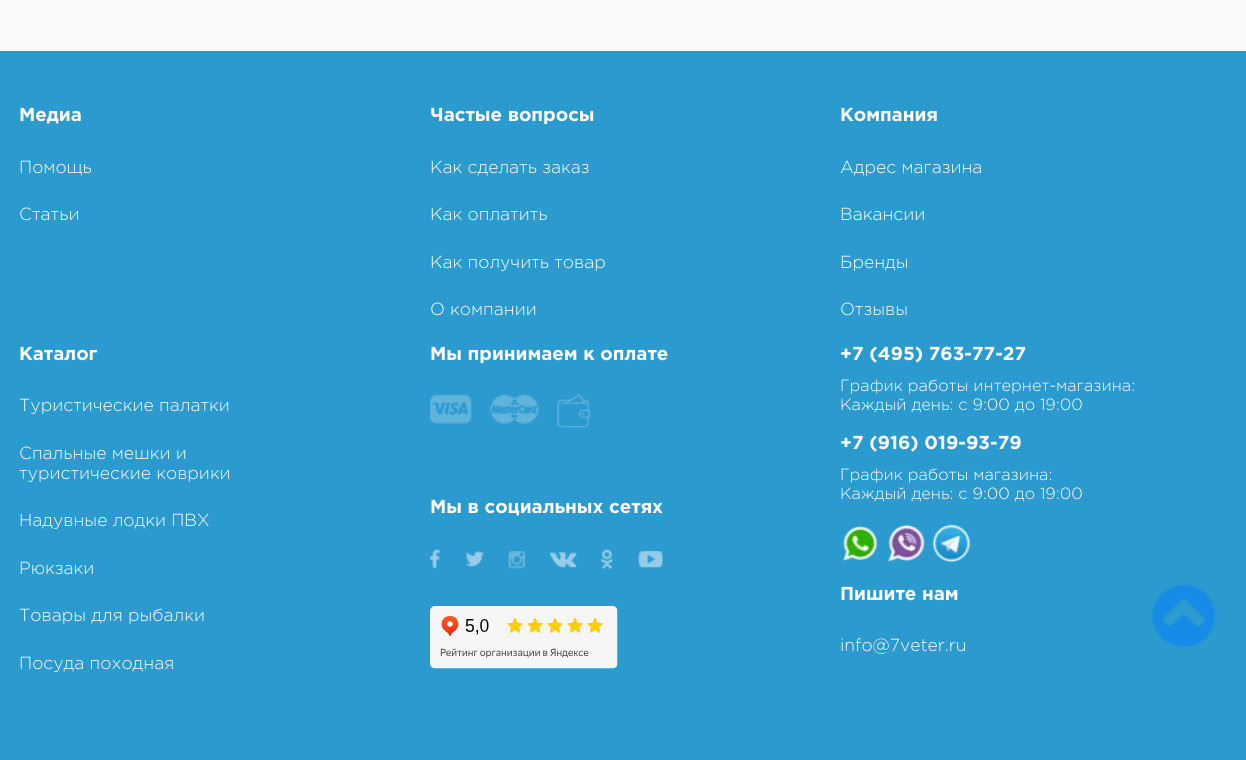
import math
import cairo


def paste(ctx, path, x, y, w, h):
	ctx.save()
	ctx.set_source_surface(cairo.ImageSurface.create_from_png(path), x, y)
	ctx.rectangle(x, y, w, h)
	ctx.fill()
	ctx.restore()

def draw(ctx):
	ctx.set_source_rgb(0.98, 0.98, 0.98)
	ctx.paint()
	ctx.set_source_rgb(0.169, 0.604, 0.812)
	ctx.rectangle(0, 51, 1246, 709)
	ctx.fill()
	ctx.select_font_face('Gotham', cairo.FONT_SLANT_NORMAL, cairo.FONT_WEIGHT_BOLD)
	ctx.set_font_size(18.75)
	ctx.set_source_rgb(1, 1, 1)
	ctx.move_to(19, 121)
	ctx.show_text('Медиа')
	ctx.select_font_face('Gotham Light')
	ctx.set_font_size(17.5)
	ctx.move_to(19, 173)
	ctx.show_text('Помощь')
	ctx.move_to(19, 220)
	ctx.show_text('Статьи')
	ctx.select_font_face('Gotham', cairo.FONT_SLANT_NORMAL, cairo.FONT_WEIGHT_BOLD)
	ctx.set_font_size(18.75)
	ctx.move_to(430, 121)
	ctx.show_text('Частые вопросы')
	ctx.select_font_face('Gotham Light')
	ctx.set_font_size(17.5)
	for x, y, s in [
		(430, 173, 'Как сделать заказ'),
		(430, 220, 'Как оплатить'),
		(430, 268, 'Как получить товар'),
		(430, 315, 'О компании'),
	]:
		ctx.move_to(x, y)
		ctx.show_text(s)
	ctx.select_font_face('Gotham', cairo.FONT_SLANT_NORMAL, cairo.FONT_WEIGHT_BOLD)
	ctx.set_font_size(18.75)
	ctx.move_to(840, 121)
	ctx.show_text('Компания')
	ctx.select_font_face('Gotham Light')
	ctx.set_font_size(17.5)
	for x, y, s in [
		(840, 173, 'Адрес магазина'),
		(840, 220, 'Вакансии'),
		(840, 268, 'Бренды'),
		(840, 315, 'Отзывы'),
	]:
		ctx.move_to(x, y)
		ctx.show_text(s)
	ctx.select_font_face('Gotham', cairo.FONT_SLANT_NORMAL, cairo.FONT_WEIGHT_BOLD)
	ctx.set_font_size(18.75)
	ctx.move_to(19, 360)
	ctx.show_text('Каталог')
	ctx.select_font_face('Gotham Light')
	ctx.set_font_size(17.5)
	for x, y, s in [
		(19, 411, 'Туристические палатки'),
		(19, 459, 'Спальные мешки и'),
		(19, 479, 'туристические коврики'),
		(19, 526, 'Надувные лодки ПВХ'),
		(19, 574, 'Рюкзаки'),
		(19, 621, 'Товары для рыбалки'),
		(19, 669, 'Посуда походная'),
	]:
		ctx.move_to(x, y)
		ctx.show_text(s)
	ctx.select_font_face('Gotham', cairo.FONT_SLANT_NORMAL, cairo.FONT_WEIGHT_BOLD)
	ctx.set_font_size(18.75)
	ctx.move_to(430, 360)
	ctx.show_text('Мы принимаем к оплате')
	paste(ctx, 'media/1.png', 430, 394, 42, 30)
	paste(ctx, 'media/2.png', 490, 394, 49, 30)
	paste(ctx, 'media/3.png', 557, 394, 33, 34)
	ctx.move_to(430, 513)
	ctx.show_text('Мы в социальных сетях')
	paste(ctx, 'media/4.png', 430, 549, 10, 20)
	paste(ctx, 'media/5.png', 465, 551, 19, 16)
	paste(ctx, 'media/6.png', 508, 551, 17, 18)
	paste(ctx, 'media/7.png', 508, 551, 17, 17)
	paste(ctx, 'media/8.png', 550, 552, 27, 16)
	paste(ctx, 'media/9.png', 601, 549, 12, 20)
	paste(ctx, 'media/10.png', 638, 550, 25, 18)
	paste(ctx, 'media/11.png', 430, 606, 188, 63)
	ctx.move_to(840, 360)
	ctx.show_text('+7 (495) 763-77-27')
	ctx.select_font_face('Gotham Light')
	ctx.set_font_size(16.25)
	ctx.move_to(840, 391)
	ctx.show_text('График работы интернет-магазина:')
	ctx.move_to(840, 410)
	ctx.show_text('Каждый день: с 9:00 до 19:00')
	ctx.select_font_face('Gotham', cairo.FONT_SLANT_NORMAL, cairo.FONT_WEIGHT_BOLD)
	ctx.set_font_size(18.75)
	ctx.move_to(840, 449)
	ctx.show_text('+7 (916) 019-93-79')
	ctx.select_font_face('Gotham Light')
	ctx.set_font_size(16.25)
	ctx.move_to(840, 480)
	ctx.show_text('График работы магазина:')
	ctx.move_to(840, 499)
	ctx.show_text('Каждый день: с 9:00 до 19:00')
	paste(ctx, 'media/12.png', 842, 526, 36, 36)
	paste(ctx, 'media/13.png', 887, 524, 39, 39)
	paste(ctx, 'media/14.png', 932, 524, 39, 39)
	ctx.select_font_face('Gotham', cairo.FONT_SLANT_NORMAL, cairo.FONT_WEIGHT_BOLD)
	ctx.set_font_size(18.75)
	ctx.move_to(840, 600)
	ctx.show_text('Пишите нам')
	ctx.select_font_face('Gotham Light')
	ctx.set_font_size(17.5)
	ctx.move_to(840, 651)
	ctx.show_text('info@7veter.ru')
	paste(ctx, 'media/15.png', 1152, 585, 64, 62)


surface = cairo.ImageSurface(cairo.FORMAT_RGB24, 1246, 760)
ctx = cairo.Context(surface)
options = cairo.FontOptions()
options.set_hint_metrics(cairo.HINT_METRICS_OFF)
options.set_hint_style(cairo.HINT_STYLE_NONE)
ctx.set_font_options(options)
ctx.set_miter_limit(4)
draw(ctx)
surface.write_to_png('image.png')
